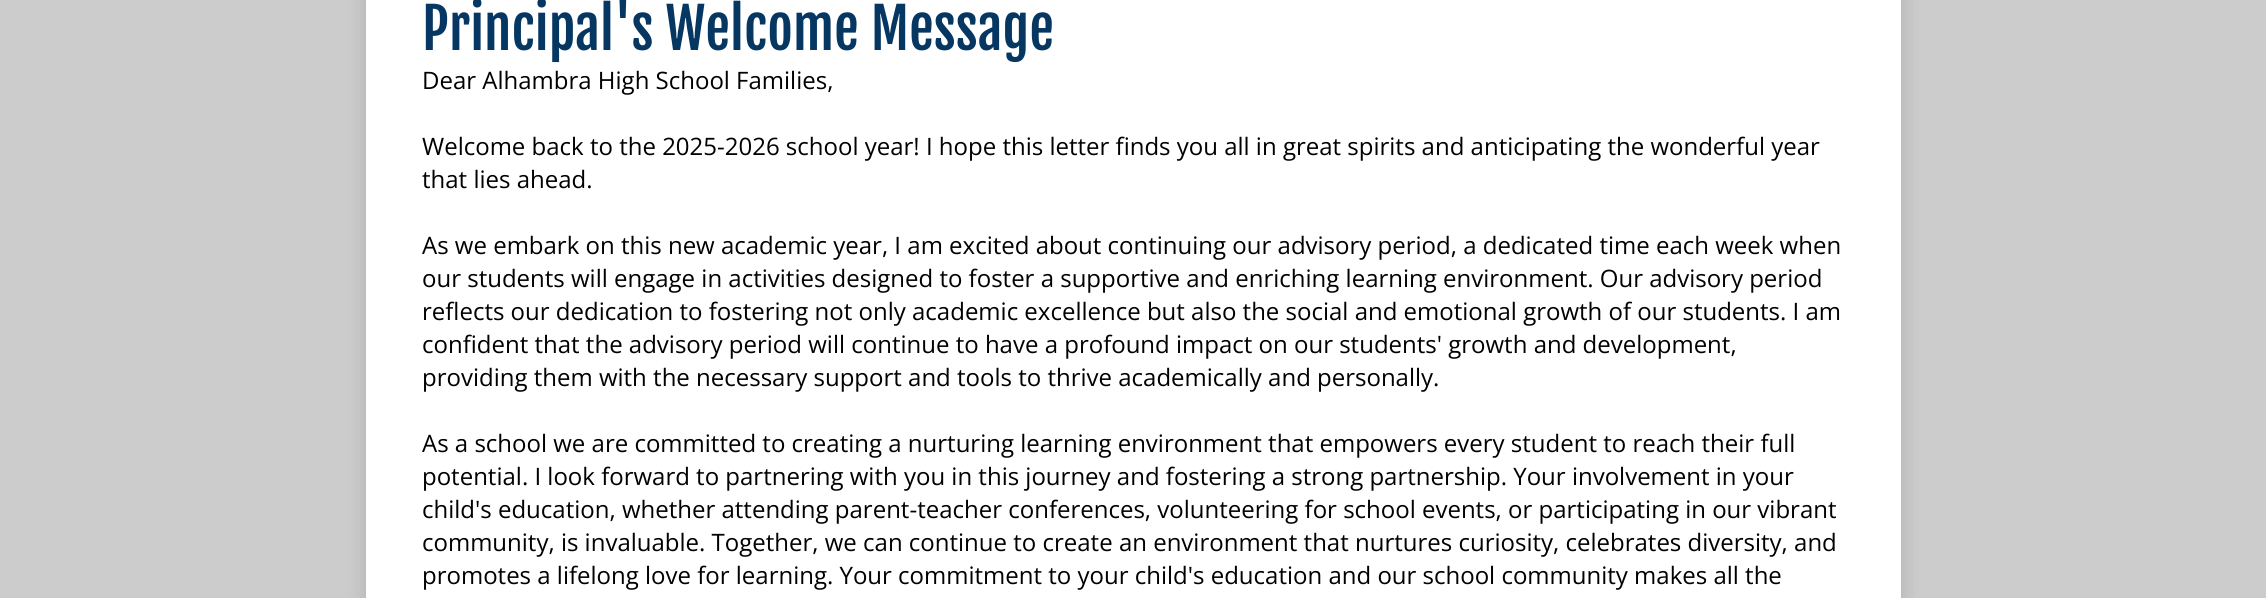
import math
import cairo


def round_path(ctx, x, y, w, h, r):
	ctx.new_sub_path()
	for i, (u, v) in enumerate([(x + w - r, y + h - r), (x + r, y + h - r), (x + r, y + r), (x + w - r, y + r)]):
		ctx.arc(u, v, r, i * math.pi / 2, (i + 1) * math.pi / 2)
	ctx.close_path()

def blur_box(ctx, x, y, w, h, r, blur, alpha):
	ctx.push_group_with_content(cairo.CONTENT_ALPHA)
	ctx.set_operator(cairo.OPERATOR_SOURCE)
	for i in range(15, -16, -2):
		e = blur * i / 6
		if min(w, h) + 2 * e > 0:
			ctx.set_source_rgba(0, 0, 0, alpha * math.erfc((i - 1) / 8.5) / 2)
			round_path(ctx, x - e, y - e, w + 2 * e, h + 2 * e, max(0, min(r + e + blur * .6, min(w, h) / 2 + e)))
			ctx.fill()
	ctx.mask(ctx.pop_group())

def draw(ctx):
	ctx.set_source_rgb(0.8, 0.8, 0.8)
	ctx.paint()
	ctx.set_source_rgb(0, 0, 0)
	blur_box(ctx, 366, -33, 1535, 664, 0, 11, 0.15)
	ctx.set_source_rgb(1, 1, 1)
	ctx.rectangle(366, 0, 1535, 598)
	ctx.fill()
	ctx.select_font_face('Fjalla One')
	ctx.set_font_size(55.5)
	ctx.set_source_rgb(0.027, 0.216, 0.384)
	ctx.move_to(422, 50)
	ctx.show_text('Principal\'s Welcome Message')
	ctx.select_font_face('Open Sans')
	ctx.set_font_size(24)
	ctx.set_source_rgb(0, 0, 0)
	for x, y, s in [
		(422, 89, 'Dear Alhambra High School Families,'),
		(422, 155, 'Welcome back to the 2025-2026 school year! I hope this letter finds you all in great spirits and anticipating the wonderful year'),
		(422, 188, 'that lies ahead.'),
		(422, 254, 'As we embark on this new academic year, I am excited about continuing our advisory period, a dedicated time each week when'),
		(422, 287, 'our students will engage in activities designed to foster a supportive and enriching learning environment. Our advisory period'),
		(422, 320, 'reflects our dedication to fostering not only academic excellence but also the social and emotional growth of our students. I am'),
		(422, 353, 'confident that the advisory period will continue to have a profound impact on our students\' growth and development,'),
		(422, 386, 'providing them with the necessary support and tools to thrive academically and personally.'),
		(422, 452, 'As a school we are committed to creating a nurturing learning environment that empowers every student to reach their full'),
		(422, 485, 'potential. I look forward to partnering with you in this journey and fostering a strong partnership. Your involvement in your'),
		(422, 518, 'child\'s education, whether attending parent-teacher conferences, volunteering for school events, or participating in our vibrant'),
		(422, 551, 'community, is invaluable. Together, we can continue to create an environment that nurtures curiosity, celebrates diversity, and'),
		(422, 584, 'promotes a lifelong love for learning. Your commitment to your child\'s education and our school community makes all the'),
	]:
		ctx.move_to(x, y)
		ctx.show_text(s)


surface = cairo.ImageSurface(cairo.FORMAT_RGB24, 2266, 598)
ctx = cairo.Context(surface)
options = cairo.FontOptions()
options.set_hint_metrics(cairo.HINT_METRICS_OFF)
options.set_hint_style(cairo.HINT_STYLE_NONE)
ctx.set_font_options(options)
ctx.set_miter_limit(4)
draw(ctx)
surface.write_to_png('image.png')
